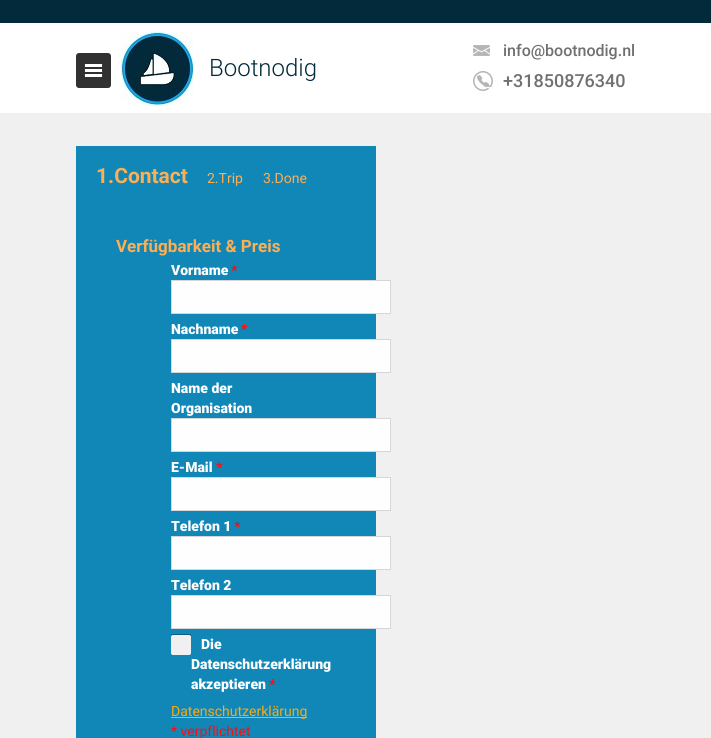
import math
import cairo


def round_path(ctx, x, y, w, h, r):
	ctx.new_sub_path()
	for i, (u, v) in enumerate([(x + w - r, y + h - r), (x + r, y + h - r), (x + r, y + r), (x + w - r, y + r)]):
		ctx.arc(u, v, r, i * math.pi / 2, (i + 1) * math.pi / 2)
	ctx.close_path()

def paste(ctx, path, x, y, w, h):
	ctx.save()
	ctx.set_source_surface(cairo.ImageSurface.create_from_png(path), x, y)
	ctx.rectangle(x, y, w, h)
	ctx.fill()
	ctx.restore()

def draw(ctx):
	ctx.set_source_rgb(0.941, 0.941, 0.941)
	ctx.paint()
	ctx.set_source_rgb(0.008, 0.165, 0.231)
	ctx.rectangle(0, 0, 711, 23)
	ctx.fill()
	ctx.set_source_rgb(1, 1, 1)
	ctx.rectangle(0, 23, 711, 90)
	ctx.fill()
	paste(ctx, 'media/1.png', 76, 53, 35, 35)
	paste(ctx, 'media/2.png', 121, 32, 73, 74)
	ctx.select_font_face('Roboto Light')
	ctx.set_font_size(24)
	ctx.set_source_rgb(0.008, 0.165, 0.231)
	ctx.move_to(209, 76)
	ctx.show_text('Bootnodig')
	paste(ctx, 'media/3.png', 473, 45, 17, 11)
	ctx.select_font_face('Roboto Medium')
	ctx.set_font_size(16)
	ctx.set_source_rgb(0.439, 0.439, 0.439)
	ctx.move_to(503, 56)
	ctx.show_text('info@bootnodig.nl')
	paste(ctx, 'media/4.png', 473, 71, 20, 20)
	ctx.set_font_size(18)
	ctx.move_to(503, 87)
	ctx.show_text('+31850876340')
	ctx.set_source_rgb(0.067, 0.529, 0.722)
	ctx.rectangle(76, 146, 300, 592)
	ctx.fill()
	ctx.select_font_face('Roboto', cairo.FONT_SLANT_NORMAL, cairo.FONT_WEIGHT_BOLD)
	ctx.set_font_size(21)
	ctx.set_source_rgb(0.996, 0.682, 0.325)
	ctx.move_to(96, 183)
	ctx.show_text('1.Contact')
	ctx.select_font_face('Roboto')
	ctx.set_font_size(14)
	ctx.move_to(207, 183)
	ctx.show_text('2.Trip')
	ctx.move_to(263, 183)
	ctx.show_text('3.Done')
	ctx.select_font_face('Roboto', cairo.FONT_SLANT_NORMAL, cairo.FONT_WEIGHT_BOLD)
	ctx.set_font_size(17)
	ctx.move_to(116, 252)
	ctx.show_text('Verfügbarkeit & Preis')
	ctx.select_font_face('Roboto Black')
	ctx.set_font_size(14)
	ctx.set_source_rgb(0.996, 0.996, 0.996)
	ctx.move_to(171, 275)
	ctx.show_text('Vorname')
	ctx.set_source_rgb(0.996, 0.047, 0.047)
	ctx.move_to(231, 275)
	ctx.show_text('*')
	ctx.set_source_rgb(0.996, 0.996, 0.996)
	ctx.rectangle(171.5, 280.5, 219, 33)
	ctx.fill_preserve()
	ctx.set_source_rgb(0.839, 0.839, 0.839)
	ctx.set_line_width(1)
	ctx.stroke()
	ctx.set_source_rgb(0.996, 0.996, 0.996)
	ctx.move_to(171, 334)
	ctx.show_text('Nachname')
	ctx.set_source_rgb(0.996, 0.047, 0.047)
	ctx.move_to(241, 334)
	ctx.show_text('*')
	ctx.set_source_rgb(0.996, 0.996, 0.996)
	ctx.rectangle(171.5, 339.5, 219, 33)
	ctx.fill_preserve()
	ctx.set_source_rgb(0.839, 0.839, 0.839)
	ctx.stroke()
	ctx.set_source_rgb(0.996, 0.996, 0.996)
	ctx.move_to(171, 393)
	ctx.show_text('Name der')
	ctx.move_to(171, 413)
	ctx.show_text('Organisation')
	ctx.rectangle(171.5, 418.5, 219, 33)
	ctx.fill_preserve()
	ctx.set_source_rgb(0.839, 0.839, 0.839)
	ctx.stroke()
	ctx.set_source_rgb(0.996, 0.996, 0.996)
	ctx.move_to(171, 472)
	ctx.show_text('E-Mail')
	ctx.set_source_rgb(0.996, 0.047, 0.047)
	ctx.move_to(216, 472)
	ctx.show_text('*')
	ctx.set_source_rgb(0.996, 0.996, 0.996)
	ctx.rectangle(171.5, 477.5, 219, 33)
	ctx.fill_preserve()
	ctx.set_source_rgb(0.839, 0.839, 0.839)
	ctx.stroke()
	ctx.set_source_rgb(0.996, 0.996, 0.996)
	ctx.move_to(171, 531)
	ctx.show_text('Telefon 1')
	ctx.set_source_rgb(0.996, 0.047, 0.047)
	ctx.move_to(234, 531)
	ctx.show_text('*')
	ctx.set_source_rgb(0.996, 0.996, 0.996)
	ctx.rectangle(171.5, 536.5, 219, 33)
	ctx.fill_preserve()
	ctx.set_source_rgb(0.839, 0.839, 0.839)
	ctx.stroke()
	ctx.set_source_rgb(0.996, 0.996, 0.996)
	ctx.move_to(171, 590)
	ctx.show_text('Telefon 2')
	ctx.rectangle(171.5, 595.5, 219, 33)
	ctx.fill_preserve()
	ctx.set_source_rgb(0.839, 0.839, 0.839)
	ctx.stroke()
	paste(ctx, 'media/5.png', 171, 634, 20, 20)
	ctx.set_source_rgb(0.941, 0.941, 0.941)
	round_path(ctx, 171.5, 635.5, 19, 19, 1.5)
	ctx.fill_preserve()
	ctx.stroke()
	ctx.set_source_rgb(0.996, 0.996, 0.996)
	for x, y, s in [
		(201, 649, 'Die'),
		(191, 669, 'Datenschutzerklärung'),
		(191, 689, 'akzeptieren'),
	]:
		ctx.move_to(x, y)
		ctx.show_text(s)
	ctx.set_source_rgb(0.996, 0.047, 0.047)
	ctx.move_to(269, 689)
	ctx.show_text('*')
	ctx.set_source_rgb(0.996, 0.663, 0.047)
	ctx.rectangle(171, 717, 136, 1)
	ctx.fill()
	ctx.select_font_face('Roboto')
	ctx.move_to(171, 716)
	ctx.show_text('Datenschutzerklärung')
	ctx.set_source_rgb(0.996, 0.047, 0.047)
	ctx.move_to(171, 736)
	ctx.show_text('* verpflichtet')


surface = cairo.ImageSurface(cairo.FORMAT_RGB24, 711, 738)
ctx = cairo.Context(surface)
options = cairo.FontOptions()
options.set_hint_metrics(cairo.HINT_METRICS_OFF)
options.set_hint_style(cairo.HINT_STYLE_NONE)
ctx.set_font_options(options)
ctx.set_miter_limit(4)
draw(ctx)
surface.write_to_png('image.png')
